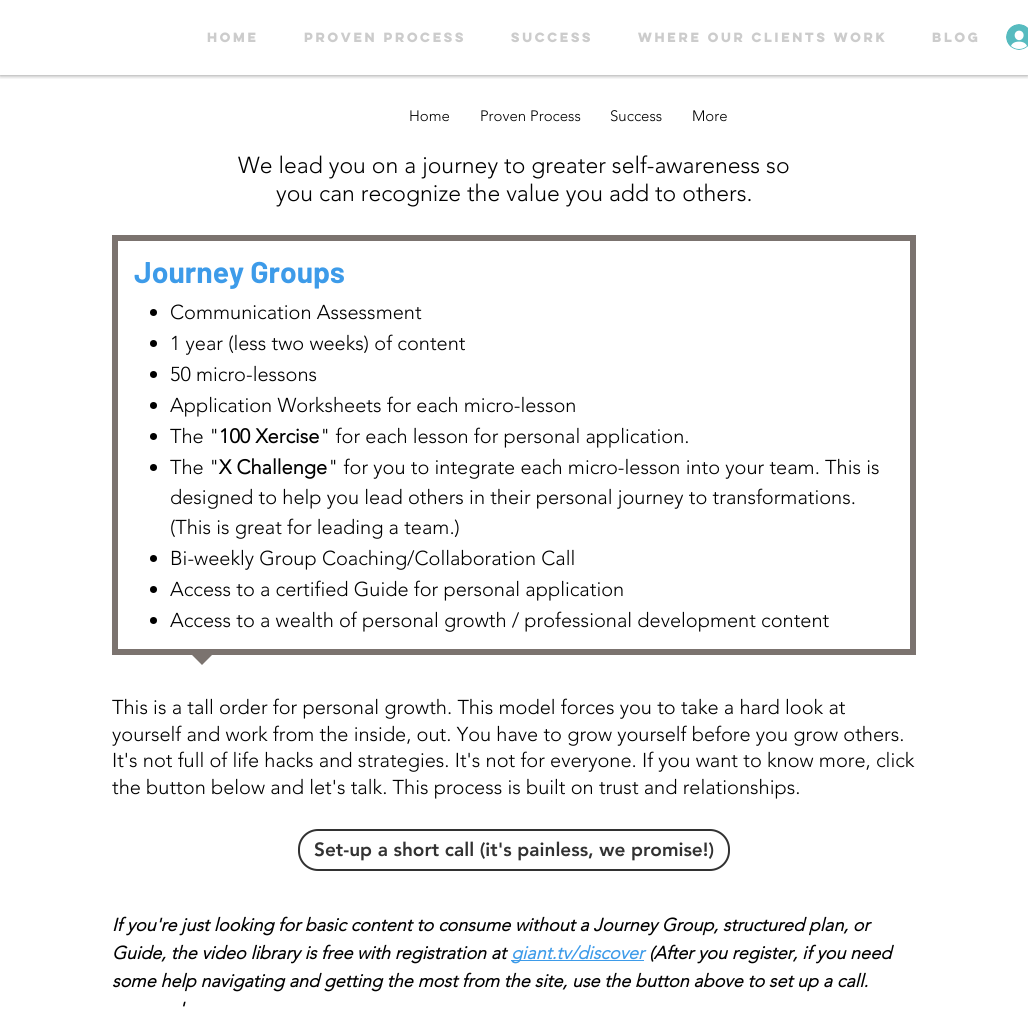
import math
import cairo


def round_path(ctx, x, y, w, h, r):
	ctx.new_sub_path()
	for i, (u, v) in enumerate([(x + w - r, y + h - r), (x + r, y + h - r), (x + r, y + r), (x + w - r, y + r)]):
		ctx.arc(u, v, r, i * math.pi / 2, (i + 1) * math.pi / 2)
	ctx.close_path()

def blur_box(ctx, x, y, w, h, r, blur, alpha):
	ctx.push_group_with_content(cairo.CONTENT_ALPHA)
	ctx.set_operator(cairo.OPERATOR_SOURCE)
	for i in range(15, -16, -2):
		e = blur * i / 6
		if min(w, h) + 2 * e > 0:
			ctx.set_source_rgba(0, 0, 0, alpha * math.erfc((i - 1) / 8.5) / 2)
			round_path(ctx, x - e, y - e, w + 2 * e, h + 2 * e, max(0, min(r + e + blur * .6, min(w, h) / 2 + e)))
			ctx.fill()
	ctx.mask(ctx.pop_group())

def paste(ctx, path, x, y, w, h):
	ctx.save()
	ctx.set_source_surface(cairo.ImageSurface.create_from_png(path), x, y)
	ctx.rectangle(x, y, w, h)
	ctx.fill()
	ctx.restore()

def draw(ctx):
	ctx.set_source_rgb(1, 1, 1)
	ctx.paint()
	ctx.save()
	ctx.rectangle(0, 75, 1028, 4)
	ctx.clip()
	ctx.set_source_rgb(0, 0, 0)
	blur_box(ctx, 0, 0, 1028, 75, 0, 2.5, 0.5)
	ctx.restore()
	ctx.select_font_face('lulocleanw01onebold', cairo.FONT_SLANT_NORMAL, cairo.FONT_WEIGHT_BOLD)
	ctx.set_font_size(12)
	ctx.set_source_rgb(0.8, 0.8, 0.8)
	for x, y, s in [
		(207, 42, 'Home'),
		(304, 42, 'Proven Process'),
		(511, 42, 'Success'),
		(638, 42, 'Where Our Clients Work'),
		(932, 42, 'BLOG'),
	]:
		ctx.move_to(x, y)
		ctx.show_text(s)
	paste(ctx, 'media/1.png', 1006, 24, 22, 26)
	ctx.select_font_face('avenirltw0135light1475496 Light')
	ctx.set_font_size(15)
	ctx.set_source_rgb(0, 0, 0)
	for x, y, s in [
		(409, 121, 'Home'),
		(480, 121, 'Proven Process'),
		(610, 121, 'Success'),
		(692, 121, 'More'),
	]:
		ctx.move_to(x, y)
		ctx.show_text(s)
	ctx.set_font_size(23)
	ctx.move_to(238, 173)
	ctx.show_text('We lead you on a journey to greater self-awareness so')
	ctx.move_to(276, 201)
	ctx.show_text('you can recognize the value you add to others.')
	ctx.rectangle(115, 238, 798, 414)
	ctx.set_source_rgb(0.482, 0.451, 0.435)
	ctx.set_line_width(6)
	ctx.stroke()
	ctx.select_font_face('Barlow', cairo.FONT_SLANT_NORMAL, cairo.FONT_WEIGHT_BOLD)
	ctx.set_font_size(30)
	ctx.set_source_rgb(0.239, 0.608, 0.914)
	ctx.move_to(134, 283)
	ctx.show_text('Journey Groups')
	ctx.set_source_rgb(0, 0, 0)
	ctx.new_path()
	ctx.arc(153.5, 312.5, 3.5, 0, 2 * math.pi)
	ctx.fill()
	ctx.select_font_face('avenirltw0135light1475496 Light')
	ctx.set_font_size(20)
	ctx.move_to(170, 319)
	ctx.show_text('Communication Assessment')
	ctx.new_path()
	ctx.arc(153.5, 343.5, 3.5, 0, 2 * math.pi)
	ctx.fill()
	ctx.move_to(170, 350)
	ctx.show_text('1 year (less two weeks) of content')
	ctx.new_path()
	ctx.arc(153.5, 374.5, 3.5, 0, 2 * math.pi)
	ctx.fill()
	ctx.move_to(170, 381)
	ctx.show_text('50 micro-lessons')
	ctx.new_path()
	ctx.arc(153.5, 405.5, 3.5, 0, 2 * math.pi)
	ctx.fill()
	ctx.move_to(170, 412)
	ctx.show_text('Application Worksheets for each micro-lesson')
	ctx.new_path()
	ctx.arc(153.5, 436.5, 3.5, 0, 2 * math.pi)
	ctx.fill()
	ctx.move_to(170, 443)
	ctx.show_text('The "')
	ctx.select_font_face('avenirltw0135light1475496', cairo.FONT_SLANT_NORMAL, cairo.FONT_WEIGHT_BOLD)
	ctx.move_to(219, 443)
	ctx.show_text('100 Xercise')
	ctx.select_font_face('avenirltw0135light1475496 Light')
	ctx.move_to(320, 443)
	ctx.show_text('" for each lesson for personal application.')
	ctx.new_path()
	ctx.arc(153.5, 467.5, 3.5, 0, 2 * math.pi)
	ctx.fill()
	ctx.move_to(170, 474)
	ctx.show_text('The "')
	ctx.select_font_face('avenirltw0135light1475496', cairo.FONT_SLANT_NORMAL, cairo.FONT_WEIGHT_BOLD)
	ctx.move_to(219, 474)
	ctx.show_text('X Challenge')
	ctx.select_font_face('avenirltw0135light1475496 Light')
	for x, y, s in [
		(328, 474, '" for you to integrate each micro-lesson into your team. This is'),
		(170, 504, 'designed to help you lead others in their personal journey to transformations.'),
		(170, 534, '(This is great for leading a team.)'),
	]:
		ctx.move_to(x, y)
		ctx.show_text(s)
	ctx.new_path()
	ctx.arc(153.5, 558.5, 3.5, 0, 2 * math.pi)
	ctx.fill()
	ctx.move_to(170, 565)
	ctx.show_text('Bi-weekly Group Coaching/Collaboration Call')
	ctx.new_path()
	ctx.arc(153.5, 589.5, 3.5, 0, 2 * math.pi)
	ctx.fill()
	ctx.move_to(170, 596)
	ctx.show_text('Access to a certified Guide for personal application')
	ctx.new_path()
	ctx.arc(153.5, 620.5, 3.5, 0, 2 * math.pi)
	ctx.fill()
	ctx.move_to(170, 627)
	ctx.show_text('Access to a wealth of personal growth / professional development content')
	ctx.set_source_rgb(0.482, 0.451, 0.435)
	ctx.new_path()
	ctx.move_to(192, 655)
	ctx.line_to(212, 655)
	ctx.line_to(202, 665)
	ctx.close_path()
	ctx.fill()
	ctx.set_source_rgb(0, 0, 0)
	for x, y, s in [
		(112, 714, 'This is a tall order for personal growth. This model forces you to take a hard look at'),
		(112, 741, 'yourself and work from the inside, out. You have to grow yourself before you grow others.'),
		(112, 767, 'It\'s not full of life hacks and strategies. It\'s not for everyone. If you want to know more, click'),
		(112, 794, 'the button below and let\'s talk. This process is built on trust and relationships.'),
	]:
		ctx.move_to(x, y)
		ctx.show_text(s)
	round_path(ctx, 299, 830, 430, 40, 19)
	ctx.set_source_rgb(0.196, 0.196, 0.196)
	ctx.set_line_width(2)
	ctx.stroke()
	ctx.select_font_face('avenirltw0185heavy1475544 Black')
	ctx.set_font_size(19)
	ctx.move_to(314, 856)
	ctx.show_text('Set-up a short call (it\'s painless, we promise!)')
	ctx.select_font_face('avenirltw0135light1475496', cairo.FONT_SLANT_ITALIC, cairo.FONT_WEIGHT_BOLD)
	ctx.set_font_size(18)
	ctx.set_source_rgb(0, 0, 0)
	ctx.move_to(112, 931)
	ctx.show_text('If you\'re just looking for basic content to consume without a Journey Group, structured plan, or')
	ctx.move_to(112, 959)
	ctx.show_text('Guide, the video library is free with registration at')
	ctx.set_source_rgb(0.239, 0.608, 0.914)
	ctx.rectangle(511, 960, 133, 1)
	ctx.fill()
	ctx.move_to(511, 959)
	ctx.show_text('giant.tv/discover')
	ctx.set_source_rgb(0, 0, 0)
	for x, y, s in [
		(649, 959, '(After you register, if you need'),
		(112, 987, 'some help navigating and getting the most from the site, use the button above to set up a call.'),
		(179, 1015, '\''),
	]:
		ctx.move_to(x, y)
		ctx.show_text(s)


surface = cairo.ImageSurface(cairo.FORMAT_RGB24, 1028, 1012)
ctx = cairo.Context(surface)
options = cairo.FontOptions()
options.set_hint_metrics(cairo.HINT_METRICS_OFF)
options.set_hint_style(cairo.HINT_STYLE_NONE)
ctx.set_font_options(options)
ctx.set_miter_limit(4)
draw(ctx)
surface.write_to_png('image.png')
